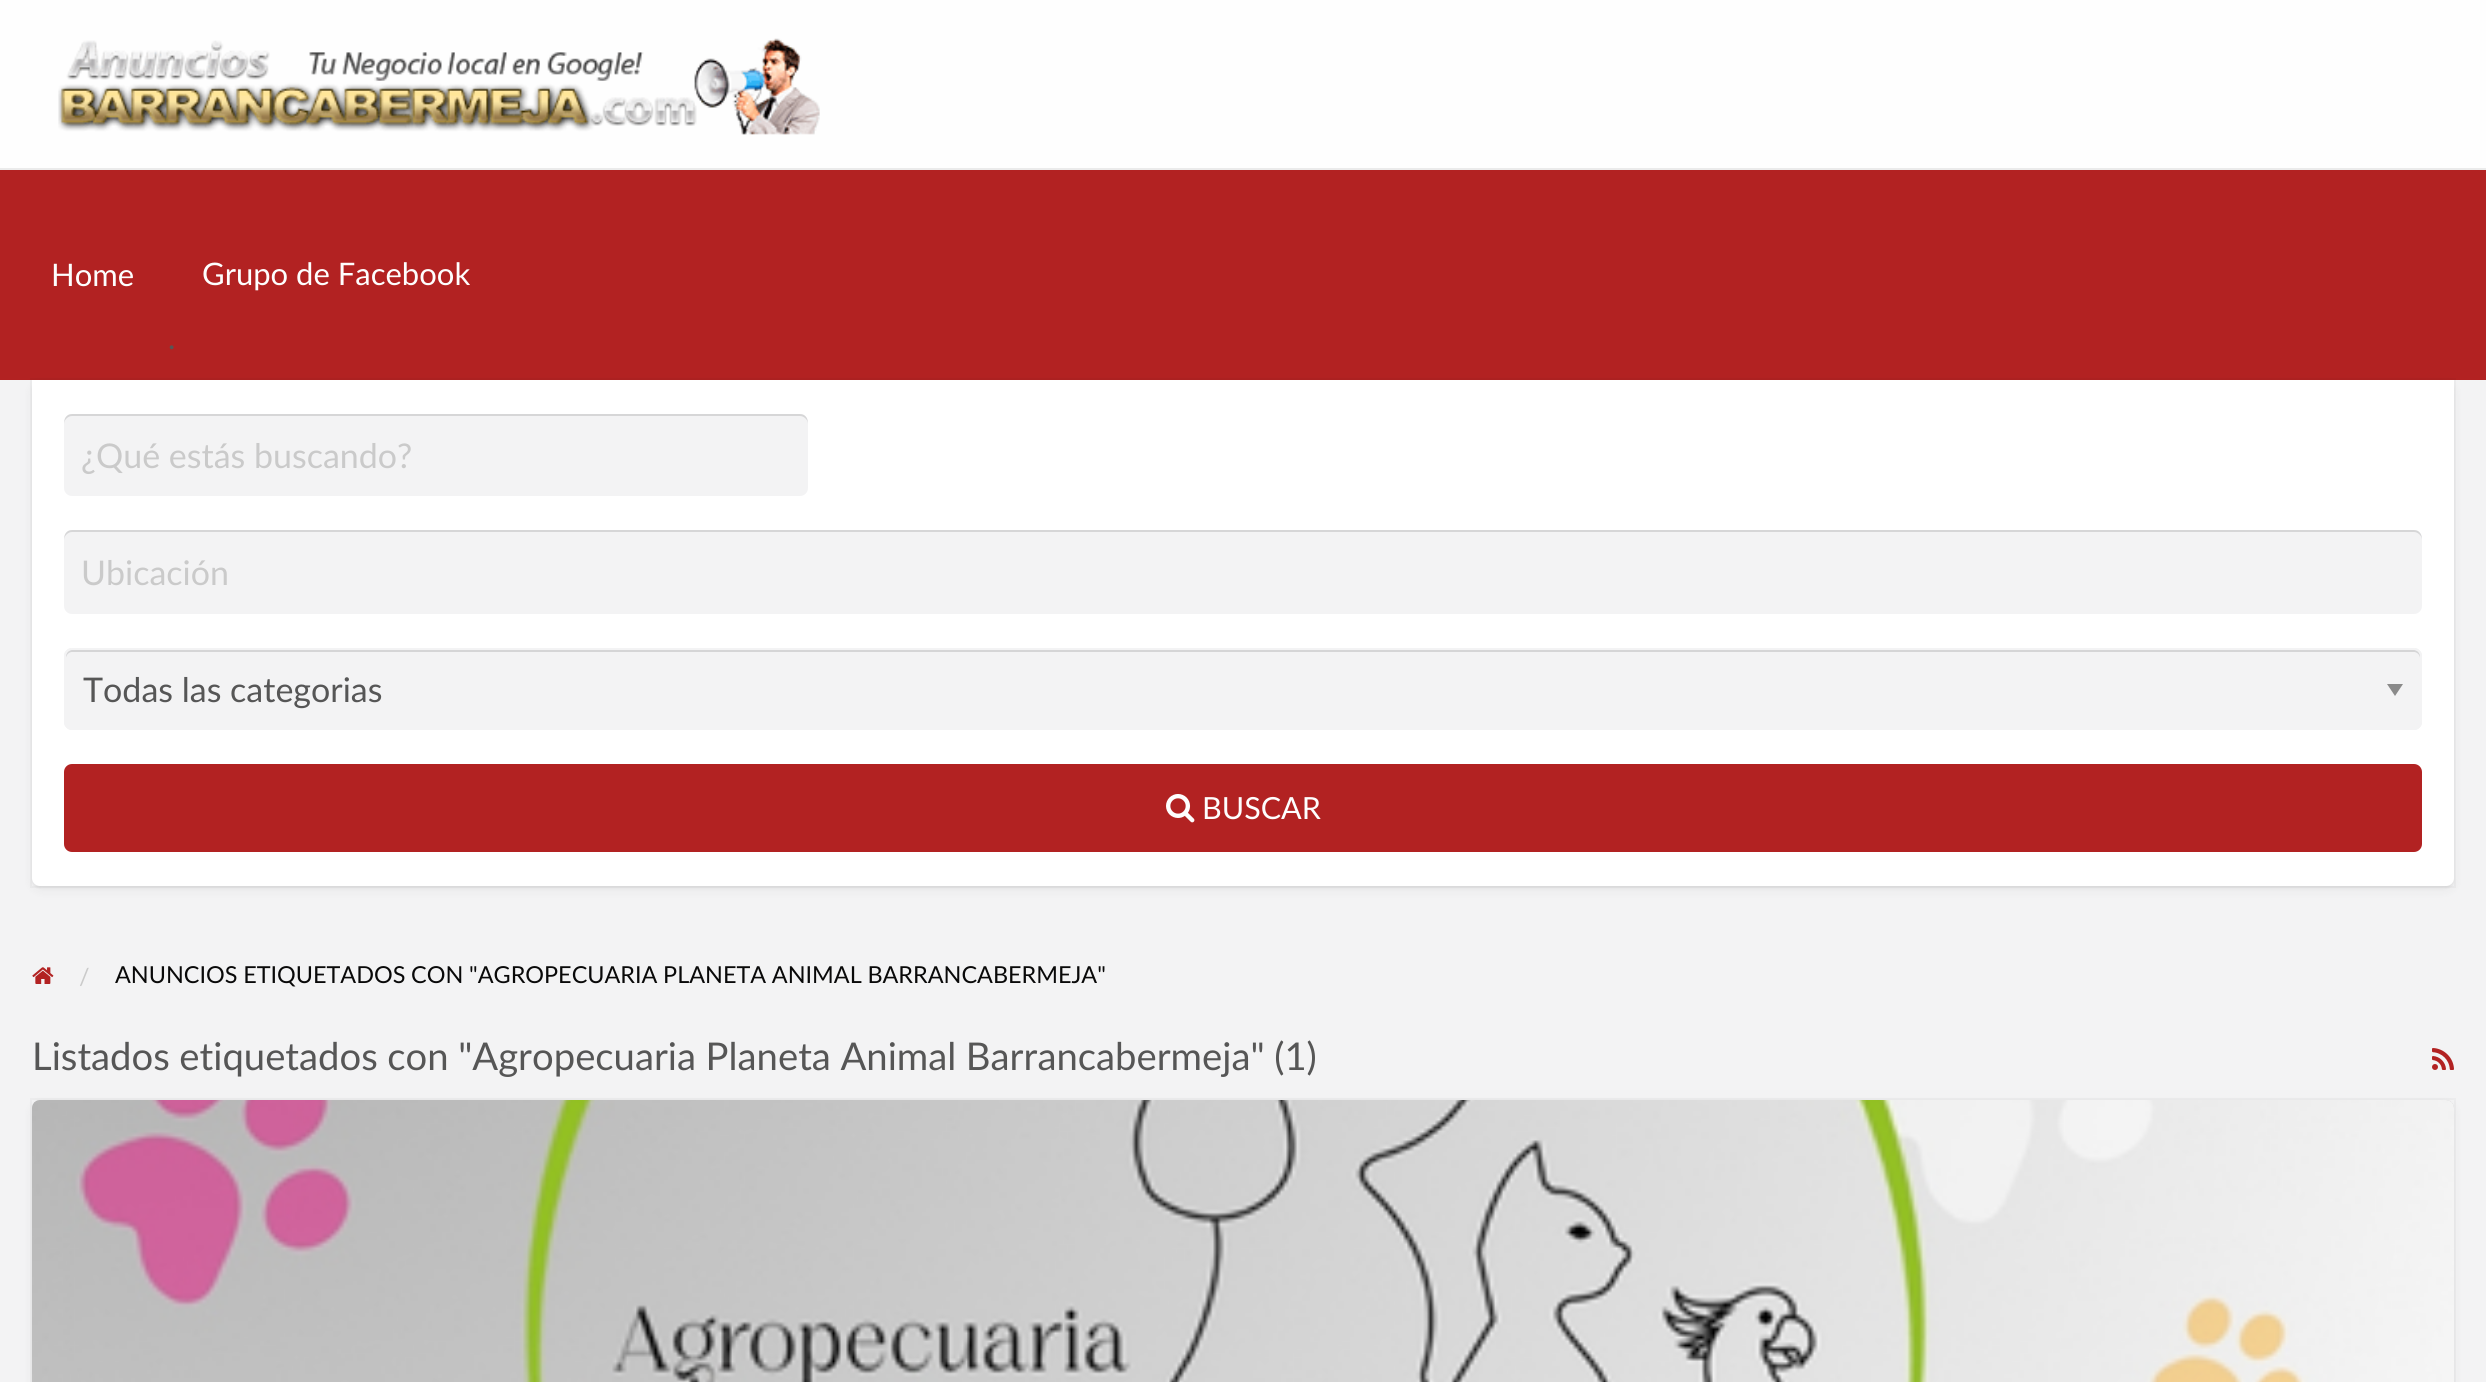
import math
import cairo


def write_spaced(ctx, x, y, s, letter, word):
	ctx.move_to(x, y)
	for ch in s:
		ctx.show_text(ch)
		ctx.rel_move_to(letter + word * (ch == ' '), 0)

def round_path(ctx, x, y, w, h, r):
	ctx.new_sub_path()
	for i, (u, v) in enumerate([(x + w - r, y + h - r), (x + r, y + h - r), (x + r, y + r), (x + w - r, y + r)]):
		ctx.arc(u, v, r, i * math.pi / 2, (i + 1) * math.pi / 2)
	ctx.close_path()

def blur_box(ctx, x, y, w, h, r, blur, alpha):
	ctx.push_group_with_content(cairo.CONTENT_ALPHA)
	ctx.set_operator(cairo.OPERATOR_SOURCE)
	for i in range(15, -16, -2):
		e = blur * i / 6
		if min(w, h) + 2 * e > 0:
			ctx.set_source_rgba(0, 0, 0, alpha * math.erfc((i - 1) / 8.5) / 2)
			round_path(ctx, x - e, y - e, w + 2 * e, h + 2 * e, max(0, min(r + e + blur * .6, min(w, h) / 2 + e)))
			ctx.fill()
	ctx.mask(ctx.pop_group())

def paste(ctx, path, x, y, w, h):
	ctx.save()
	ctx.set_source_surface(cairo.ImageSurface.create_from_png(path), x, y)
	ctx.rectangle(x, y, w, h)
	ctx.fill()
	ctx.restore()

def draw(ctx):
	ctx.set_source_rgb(0.953, 0.953, 0.957)
	ctx.paint()
	ctx.set_source_rgb(0.996, 0.996, 0.996)
	ctx.rectangle(0, 0, 2486, 168)
	ctx.fill()
	ctx.set_source_rgb(0.918, 0.918, 0.918)
	ctx.rectangle(0, 168, 2486, 2)
	ctx.fill()
	paste(ctx, 'media/1.png', 58, 38, 762, 97)
	ctx.set_source_rgb(0.698, 0.133, 0.133)
	ctx.rectangle(0, 170, 2486, 210)
	ctx.fill()
	ctx.select_font_face('Lato')
	ctx.set_font_size(31)
	ctx.set_source_rgb(0.996, 0.996, 0.996)
	ctx.move_to(51, 286)
	ctx.show_text('Home')
	ctx.move_to(202, 285)
	ctx.show_text('Grupo de Facebook')
	ctx.set_source_rgb(0.337, 0.337, 0.337)
	ctx.move_to(168, 349)
	ctx.show_text('.')
	ctx.set_source_rgb(0, 0, 0)
	blur_box(ctx, 32, 384, 2422, 506, 8, 5, 0.05)
	blur_box(ctx, 32, 382, 2422, 506, 8, 1, 0.05)
	ctx.rectangle(31, 379, 2424, 508)
	ctx.set_source_rgba(0, 0, 0, 0.03)
	ctx.stroke()
	ctx.set_source_rgb(1, 1, 1)
	ctx.new_path()
	ctx.move_to(32, 380)
	ctx.line_to(2454, 380)
	ctx.line_to(2454, 878)
	ctx.curve_to(2454, 882.5, 2450.5, 886, 2446, 886)
	ctx.line_to(40, 886)
	ctx.curve_to(35.5, 886, 32, 882.5, 32, 878)
	ctx.close_path()
	ctx.fill()
	ctx.set_source_rgb(0.953, 0.953, 0.957)
	round_path(ctx, 64, 414, 744, 82, 8)
	ctx.fill()
	ctx.set_source_rgba(0, 0, 0, 0.12)
	ctx.new_path()
	ctx.move_to(72, 416)
	ctx.line_to(800, 416)
	ctx.curve_to(804, 416, 808, 420, 808, 424)
	ctx.curve_to(808, 419, 806, 414, 800, 414)
	ctx.line_to(72, 414)
	ctx.curve_to(66, 414, 64, 419, 64, 424)
	ctx.curve_to(64, 420, 68, 416, 72, 416)
	ctx.close_path()
	ctx.fill()
	ctx.set_font_size(34)
	ctx.set_source_rgb(0.792, 0.792, 0.792)
	ctx.move_to(81, 468)
	ctx.show_text('¿Qué estás buscando?')
	ctx.set_source_rgb(0.953, 0.953, 0.957)
	round_path(ctx, 64, 530, 2358, 84, 8)
	ctx.fill()
	ctx.set_source_rgba(0, 0, 0, 0.12)
	ctx.new_path()
	ctx.move_to(72, 532)
	ctx.line_to(2414, 532)
	ctx.curve_to(2418, 532, 2422, 536, 2422, 540)
	ctx.curve_to(2422, 535, 2420, 530, 2414, 530)
	ctx.line_to(72, 530)
	ctx.curve_to(66, 530, 64, 535, 64, 540)
	ctx.curve_to(64, 536, 68, 532, 72, 532)
	ctx.close_path()
	ctx.fill()
	ctx.set_source_rgb(0.792, 0.792, 0.792)
	ctx.move_to(81, 585)
	ctx.show_text('Ubicación')
	ctx.set_source_rgb(0.953, 0.953, 0.957)
	round_path(ctx, 64, 648, 2358, 82, 8)
	ctx.fill()
	ctx.set_source_rgb(0.541, 0.541, 0.541)
	ctx.new_path()
	ctx.move_to(2387, 684)
	ctx.line_to(2403, 684)
	ctx.line_to(2395, 696)
	ctx.close_path()
	ctx.fill()
	ctx.set_source_rgb(0.835, 0.835, 0.839)
	ctx.new_path()
	ctx.move_to(72, 652)
	ctx.line_to(2414, 652)
	ctx.curve_to(2417, 652, 2420, 655, 2420, 658)
	ctx.line_to(2420, 656)
	ctx.curve_to(2420, 653, 2417, 650, 2414, 650)
	ctx.line_to(72, 650)
	ctx.curve_to(69, 650, 66, 653, 66, 656)
	ctx.line_to(66, 658)
	ctx.curve_to(66, 655, 69, 652, 72, 652)
	ctx.close_path()
	ctx.fill()
	round_path(ctx, 65, 649, 2356, 80, 7)
	ctx.set_source_rgb(0.953, 0.953, 0.957)
	ctx.stroke()
	ctx.set_source_rgb(0.337, 0.337, 0.337)
	ctx.move_to(83, 702)
	ctx.show_text('Todas las categorias')
	ctx.set_source_rgb(0.698, 0.133, 0.133)
	round_path(ctx, 64, 764, 2358, 88, 8)
	ctx.fill()
	paste(ctx, 'media/2.png', 1166, 794, 29, 29)
	ctx.set_font_size(30.5)
	ctx.set_source_rgb(0.996, 0.996, 0.996)
	ctx.move_to(1202, 819)
	ctx.show_text('BUSCAR')
	paste(ctx, 'media/3.png', 32, 967, 22, 17)
	ctx.set_font_size(23.4)
	ctx.set_source_rgb(0.792, 0.792, 0.792)
	ctx.move_to(79, 985)
	ctx.show_text('/')
	ctx.set_source_rgb(0.039, 0.039, 0.039)
	write_spaced(ctx, 115, 983, 'ANUNCIOS ETIQUETADOS CON "AGROPECUARIA PLANETA ANIMAL BARRANCABERMEJA"', 0, -0.25)
	ctx.set_font_size(38.25)
	ctx.set_source_rgb(0.337, 0.337, 0.337)
	write_spaced(ctx, 32, 1070, 'Listados etiquetados con "Agropecuaria Planeta Animal Barrancabermeja" (1)', 0, -0.25)
	paste(ctx, 'media/4.png', 2432, 1048, 22, 22)
	ctx.set_source_rgb(0, 0, 0)
	blur_box(ctx, 32, 1104, 2422, 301, 8, 5, 0.05)
	ctx.rectangle(31, 1099, 2424, 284)
	ctx.set_source_rgba(0, 0, 0, 0.03)
	ctx.stroke()
	ctx.set_source_rgb(0.8, 0.8, 0.8)
	round_path(ctx, 32, 1100, 2422, 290, 8)
	ctx.fill()
	paste(ctx, 'media/5.png', 32, 1100, 2422, 282)


surface = cairo.ImageSurface(cairo.FORMAT_RGB24, 2486, 1382)
ctx = cairo.Context(surface)
options = cairo.FontOptions()
options.set_hint_metrics(cairo.HINT_METRICS_OFF)
options.set_hint_style(cairo.HINT_STYLE_NONE)
ctx.set_font_options(options)
ctx.set_miter_limit(4)
draw(ctx)
surface.write_to_png('image.png')
